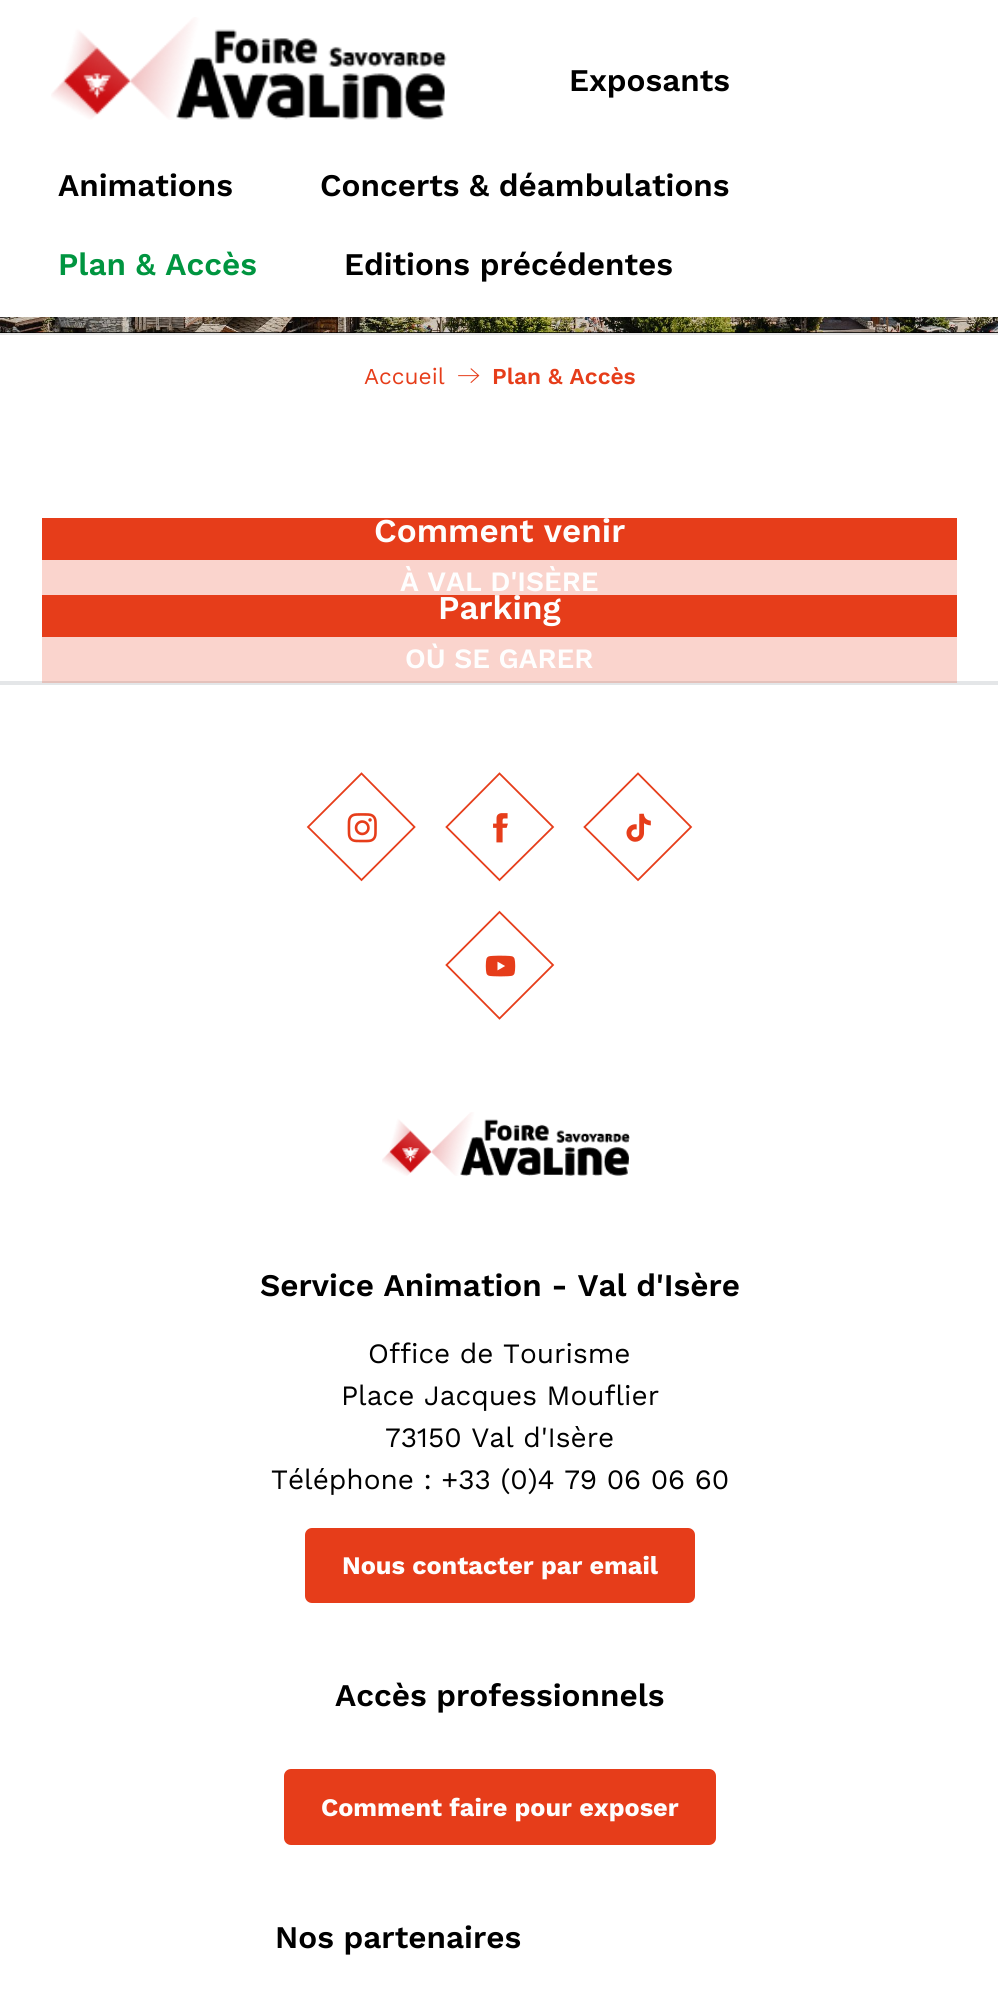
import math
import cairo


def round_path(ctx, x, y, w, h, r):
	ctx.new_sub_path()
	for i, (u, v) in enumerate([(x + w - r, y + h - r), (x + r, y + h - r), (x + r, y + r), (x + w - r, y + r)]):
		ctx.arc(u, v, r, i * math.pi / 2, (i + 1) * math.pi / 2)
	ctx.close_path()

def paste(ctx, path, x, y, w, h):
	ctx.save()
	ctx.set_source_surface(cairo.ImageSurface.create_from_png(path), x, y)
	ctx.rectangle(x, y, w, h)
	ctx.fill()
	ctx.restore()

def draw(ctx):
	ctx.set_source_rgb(1, 1, 1)
	ctx.paint()
	ctx.set_source_rgb(0.98, 0.831, 0.804)
	ctx.rectangle(42, 637, 915, 44)
	ctx.fill()
	ctx.rectangle(42, 560, 915, 35)
	ctx.fill()
	paste(ctx, 'media/1.png', 51, 17, 396, 103)
	ctx.select_font_face('Work Sans SemiBold')
	ctx.set_font_size(31.5)
	ctx.set_source_rgb(0, 0, 0)
	for x, y, s in [
		(569, 91, 'Exposants'),
		(58, 196, 'Animations'),
		(320, 196, 'Concerts & déambulations'),
	]:
		ctx.move_to(x, y)
		ctx.show_text(s)
	ctx.set_source_rgb(0, 0.584, 0.251)
	ctx.move_to(58, 275)
	ctx.show_text('Plan & Accès')
	ctx.set_source_rgb(0, 0, 0)
	ctx.move_to(344, 275)
	ctx.show_text('Editions précédentes')
	ctx.rectangle(0, 317, 998, 16)
	ctx.fill()
	paste(ctx, 'media/2.png', 0, 317, 998, 16)
	ctx.set_source_rgb(0.894, 0.894, 0.894)
	ctx.rectangle(0, 333, 998, 2)
	ctx.fill()
	ctx.select_font_face('Work Sans')
	ctx.set_font_size(22.75)
	ctx.set_source_rgb(0.902, 0.239, 0.102)
	ctx.move_to(364, 384)
	ctx.show_text('Accueil')
	paste(ctx, 'media/3.png', 458, 368, 22, 15)
	ctx.select_font_face('Work Sans SemiBold')
	ctx.move_to(492, 384)
	ctx.show_text('Plan & Accès')
	ctx.rectangle(42, 518, 915, 42)
	ctx.fill()
	ctx.set_font_size(33.25)
	ctx.set_source_rgb(0.996, 0.996, 0.996)
	ctx.move_to(374, 542)
	ctx.show_text('Comment venir')
	ctx.set_font_size(28)
	ctx.move_to(400, 591)
	ctx.show_text('À VAL D\'ISÈRE')
	ctx.set_source_rgb(0.902, 0.239, 0.102)
	ctx.rectangle(42, 595, 915, 42)
	ctx.fill()
	ctx.set_font_size(33.25)
	ctx.set_source_rgb(0.996, 0.996, 0.996)
	ctx.move_to(438, 619)
	ctx.show_text('Parking')
	ctx.set_font_size(28)
	ctx.move_to(405, 668)
	ctx.show_text('OÙ SE GARER')
	ctx.set_source_rgb(0.894, 0.902, 0.91)
	ctx.rectangle(0, 681, 998, 4)
	ctx.fill()
	ctx.set_source_rgb(0.894, 0.757, 0.733)
	ctx.rectangle(42, 681, 915, 2)
	ctx.fill()
	ctx.new_path()
	ctx.move_to(361.5, 773.5)
	ctx.line_to(414.5, 827)
	ctx.line_to(361.5, 880)
	ctx.line_to(308, 827)
	ctx.close_path()
	ctx.set_source_rgb(0.902, 0.239, 0.102)
	ctx.set_line_width(1.8)
	ctx.stroke()
	paste(ctx, 'media/4.png', 347, 813, 30, 30)
	ctx.new_path()
	ctx.move_to(499.5, 773.5)
	ctx.line_to(553, 827)
	ctx.line_to(499.5, 880)
	ctx.line_to(446.5, 827)
	ctx.close_path()
	ctx.stroke()
	paste(ctx, 'media/5.png', 493, 813, 15, 30)
	ctx.new_path()
	ctx.move_to(638, 773.5)
	ctx.line_to(691, 827)
	ctx.line_to(638, 880)
	ctx.line_to(584.5, 827)
	ctx.close_path()
	ctx.stroke()
	paste(ctx, 'media/6.png', 626, 813, 25, 29)
	ctx.new_path()
	ctx.move_to(499.5, 912)
	ctx.line_to(553, 965)
	ctx.line_to(499.5, 1018.5)
	ctx.line_to(446.5, 965)
	ctx.close_path()
	ctx.stroke()
	paste(ctx, 'media/7.png', 485, 955, 31, 22)
	paste(ctx, 'media/8.png', 382, 1112, 248, 64)
	ctx.set_font_size(31.5)
	ctx.set_source_rgb(0, 0, 0)
	ctx.move_to(260, 1296)
	ctx.show_text('Service Animation - Val d\'Isère')
	ctx.select_font_face('Work Sans')
	ctx.set_font_size(28)
	for x, y, s in [
		(368, 1363, 'Office de Tourisme'),
		(341, 1405, 'Place Jacques Mouflier'),
		(385, 1447, '73150 Val d\'Isère'),
		(271, 1489, 'Téléphone : +33 (0)4 79 06 06 60'),
	]:
		ctx.move_to(x, y)
		ctx.show_text(s)
	ctx.set_source_rgb(0.902, 0.239, 0.102)
	round_path(ctx, 305, 1528, 390, 75, 7)
	ctx.fill()
	ctx.select_font_face('Work Sans', cairo.FONT_SLANT_NORMAL, cairo.FONT_WEIGHT_BOLD)
	ctx.set_font_size(25.25)
	ctx.set_source_rgb(0.996, 0.996, 0.996)
	ctx.move_to(342, 1574)
	ctx.show_text('Nous contacter par email')
	ctx.select_font_face('Work Sans SemiBold')
	ctx.set_font_size(31.5)
	ctx.set_source_rgb(0, 0, 0)
	ctx.move_to(335, 1706)
	ctx.show_text('Accès professionnels')
	ctx.set_source_rgb(0.902, 0.239, 0.102)
	round_path(ctx, 284, 1769, 432, 76, 7)
	ctx.fill()
	ctx.select_font_face('Work Sans', cairo.FONT_SLANT_NORMAL, cairo.FONT_WEIGHT_BOLD)
	ctx.set_font_size(25.25)
	ctx.set_source_rgb(0.996, 0.996, 0.996)
	ctx.move_to(321, 1816)
	ctx.show_text('Comment faire pour exposer')
	ctx.select_font_face('Work Sans SemiBold')
	ctx.set_font_size(31.5)
	ctx.set_source_rgb(0, 0, 0)
	ctx.move_to(275, 1948)
	ctx.show_text('Nos partenaires')


surface = cairo.ImageSurface(cairo.FORMAT_RGB24, 998, 2013)
ctx = cairo.Context(surface)
options = cairo.FontOptions()
options.set_hint_metrics(cairo.HINT_METRICS_OFF)
options.set_hint_style(cairo.HINT_STYLE_NONE)
ctx.set_font_options(options)
ctx.set_miter_limit(4)
draw(ctx)
surface.write_to_png('image.png')
